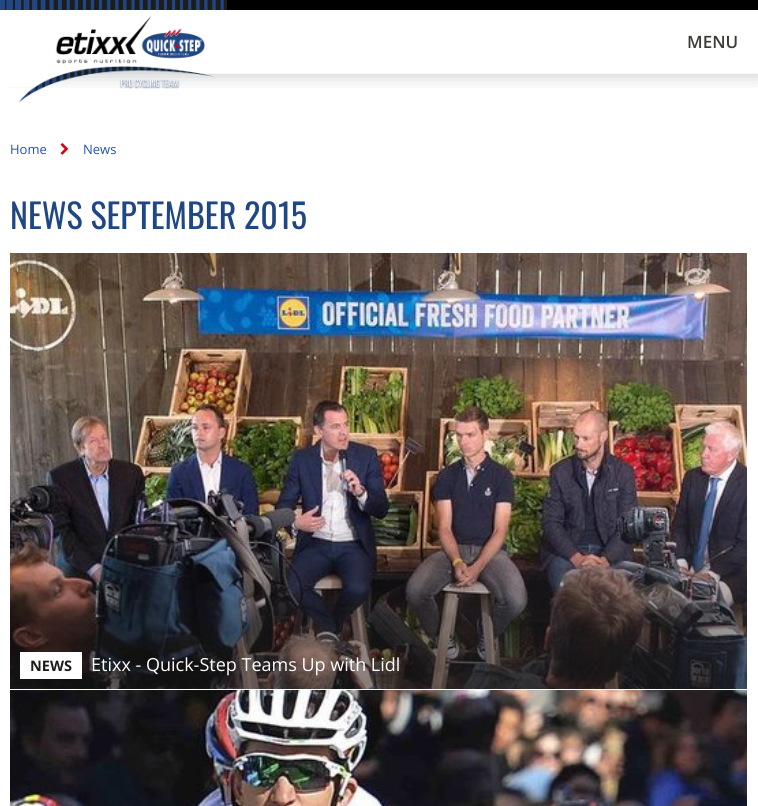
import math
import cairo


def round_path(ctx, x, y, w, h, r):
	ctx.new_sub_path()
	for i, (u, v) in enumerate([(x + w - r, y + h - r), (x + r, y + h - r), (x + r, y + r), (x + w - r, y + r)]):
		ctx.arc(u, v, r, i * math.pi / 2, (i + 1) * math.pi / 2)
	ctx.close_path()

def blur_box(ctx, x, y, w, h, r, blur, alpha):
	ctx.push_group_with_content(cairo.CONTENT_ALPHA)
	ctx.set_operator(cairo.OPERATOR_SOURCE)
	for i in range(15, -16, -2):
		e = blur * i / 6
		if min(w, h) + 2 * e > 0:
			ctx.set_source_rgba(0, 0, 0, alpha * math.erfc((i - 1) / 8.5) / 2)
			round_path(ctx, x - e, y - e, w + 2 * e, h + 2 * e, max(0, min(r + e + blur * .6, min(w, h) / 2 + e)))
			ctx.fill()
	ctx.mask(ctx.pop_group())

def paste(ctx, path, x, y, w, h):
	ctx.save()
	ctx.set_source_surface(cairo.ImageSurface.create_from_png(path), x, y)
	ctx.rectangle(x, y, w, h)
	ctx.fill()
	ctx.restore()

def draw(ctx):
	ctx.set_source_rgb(1, 1, 1)
	ctx.paint()
	ctx.save()
	ctx.rectangle(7, 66, 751, 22)
	ctx.clip()
	ctx.set_source_rgb(0.059, 0.129, 0.145)
	blur_box(ctx, 0, 10, 758, 63, 0, 10, 0.3)
	ctx.restore()
	ctx.set_source_rgb(0, 0, 0)
	ctx.rectangle(227, 0, 531, 10)
	ctx.fill()
	paste(ctx, 'media/1.png', 0, 0, 227, 10)
	paste(ctx, 'media/3.png', 0, 63, 758, 24)
	paste(ctx, 'media/2.png', 18, 16, 196, 87)
	ctx.select_font_face('Open Sans SemiBold')
	ctx.set_font_size(17)
	ctx.set_source_rgb(0.239, 0.239, 0.216)
	ctx.move_to(687, 48)
	ctx.show_text('MENU')
	ctx.select_font_face('Open Sans')
	ctx.set_font_size(13)
	ctx.set_source_rgb(0.141, 0.314, 0.71)
	ctx.move_to(10, 154)
	ctx.show_text('Home')
	paste(ctx, 'media/4.png', 60, 143, 9, 12)
	ctx.move_to(83, 154)
	ctx.show_text('News')
	ctx.select_font_face('Oswald')
	ctx.set_font_size(34)
	ctx.set_source_rgb(0.125, 0.278, 0.522)
	ctx.move_to(10, 229)
	ctx.show_text('NEWS SEPTEMBER 2015')
	paste(ctx, 'media/5.png', 10, 253, 737, 436)
	ctx.set_source_rgb(1, 1, 1)
	ctx.rectangle(20, 652, 62, 27)
	ctx.fill()
	ctx.select_font_face('Open Sans', cairo.FONT_SLANT_NORMAL, cairo.FONT_WEIGHT_BOLD)
	ctx.set_font_size(14.5)
	ctx.set_source_rgb(0.114, 0.114, 0.106)
	ctx.move_to(30, 671)
	ctx.show_text('NEWS')
	ctx.select_font_face('Open Sans')
	ctx.set_font_size(18)
	ctx.set_source_rgb(1, 1, 1)
	ctx.move_to(91, 671)
	ctx.show_text('Etixx - Quick-Step Teams Up with Lidl')
	paste(ctx, 'media/6.png', 10, 690, 737, 116)


surface = cairo.ImageSurface(cairo.FORMAT_RGB24, 758, 806)
ctx = cairo.Context(surface)
options = cairo.FontOptions()
options.set_hint_metrics(cairo.HINT_METRICS_OFF)
options.set_hint_style(cairo.HINT_STYLE_NONE)
ctx.set_font_options(options)
ctx.set_miter_limit(4)
draw(ctx)
surface.write_to_png('image.png')
